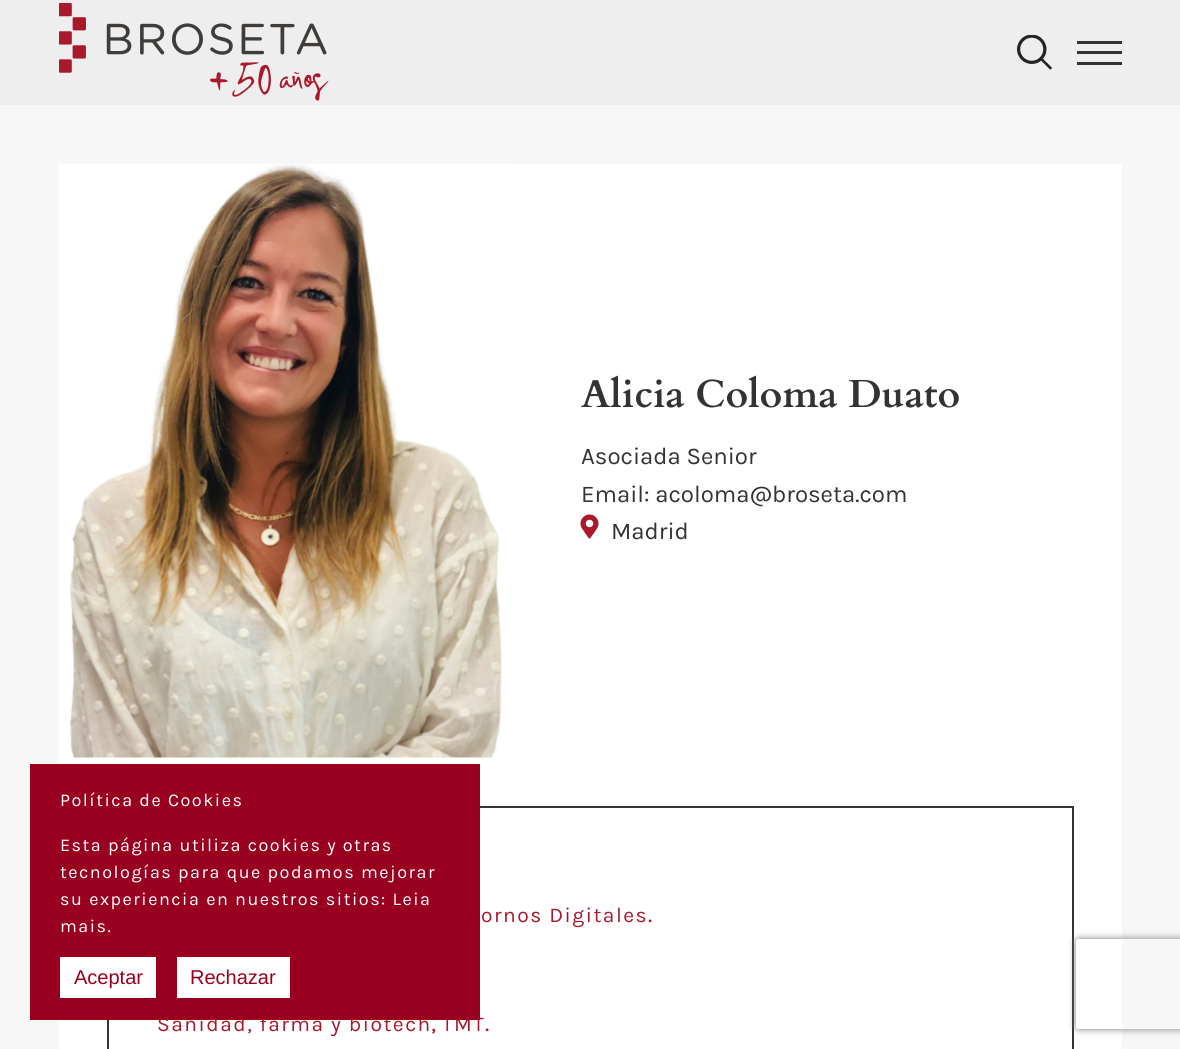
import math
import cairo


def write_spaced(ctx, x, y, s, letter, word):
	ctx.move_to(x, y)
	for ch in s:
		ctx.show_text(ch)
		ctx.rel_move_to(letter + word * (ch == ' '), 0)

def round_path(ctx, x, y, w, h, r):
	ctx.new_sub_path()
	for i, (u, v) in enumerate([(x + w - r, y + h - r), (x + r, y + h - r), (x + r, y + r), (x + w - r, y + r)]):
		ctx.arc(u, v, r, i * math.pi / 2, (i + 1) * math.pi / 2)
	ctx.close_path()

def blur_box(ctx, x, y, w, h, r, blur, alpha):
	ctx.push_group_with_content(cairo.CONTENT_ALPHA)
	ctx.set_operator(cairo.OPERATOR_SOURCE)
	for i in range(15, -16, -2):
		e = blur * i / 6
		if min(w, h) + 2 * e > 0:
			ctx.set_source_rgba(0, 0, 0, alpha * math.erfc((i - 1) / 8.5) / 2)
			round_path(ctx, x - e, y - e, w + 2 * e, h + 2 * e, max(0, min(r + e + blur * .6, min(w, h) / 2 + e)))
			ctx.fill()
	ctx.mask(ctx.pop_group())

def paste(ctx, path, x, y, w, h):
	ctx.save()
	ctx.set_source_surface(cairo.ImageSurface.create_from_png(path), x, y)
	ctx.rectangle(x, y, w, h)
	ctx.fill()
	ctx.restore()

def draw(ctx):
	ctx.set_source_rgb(0.965, 0.965, 0.965)
	ctx.paint()
	ctx.set_source_rgb(0.933, 0.933, 0.933)
	ctx.rectangle(0, 0, 1180, 105)
	ctx.fill()
	paste(ctx, 'media/1.png', 59, 3, 270, 98)
	paste(ctx, 'media/2.png', 1017, 35, 35, 35)
	ctx.set_source_rgb(0.2, 0.2, 0.2)
	ctx.rectangle(1077, 41, 45, 3)
	ctx.rectangle(1077, 51, 45, 3)
	ctx.rectangle(1077, 62, 45, 3)
	ctx.fill()
	ctx.set_source_rgb(1, 1, 1)
	ctx.rectangle(59, 164, 1063, 885)
	ctx.fill()
	paste(ctx, 'media/3.png', 58, 163, 450, 595)
	ctx.select_font_face('Cardo', cairo.FONT_SLANT_NORMAL, cairo.FONT_WEIGHT_BOLD)
	ctx.set_font_size(39)
	ctx.set_source_rgb(0.2, 0.2, 0.2)
	ctx.move_to(581, 407)
	ctx.show_text('Alicia Coloma Duato')
	ctx.select_font_face('Karla')
	ctx.set_font_size(24)
	ctx.move_to(581, 464)
	ctx.show_text('Asociada Senior')
	ctx.move_to(581, 502)
	ctx.show_text('Email: acoloma@broseta.com')
	paste(ctx, 'media/4.png', 580, 514, 19, 25)
	ctx.move_to(611, 539)
	ctx.show_text('Madrid')
	ctx.rectangle(108, 807, 965, 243)
	ctx.stroke()
	ctx.set_font_size(21)
	ctx.set_source_rgb(0.667, 0.094, 0.173)
	write_spaced(ctx, 481, 922, 'ornos Digitales', 1.5, 0)
	ctx.set_font_size(24)
	ctx.move_to(648, 922)
	ctx.show_text('.')
	ctx.set_font_size(21)
	write_spaced(ctx, 157, 1031, 'Sanidad, farma y biotech', 1.5, 0)
	ctx.set_font_size(24)
	ctx.move_to(431, 1031)
	ctx.show_text(',')
	ctx.set_font_size(21)
	write_spaced(ctx, 442, 1031, 'TMT', 1.5, 0)
	ctx.set_font_size(24)
	ctx.move_to(485, 1031)
	ctx.show_text('.')
	ctx.set_source_rgb(0.6, 0, 0.125)
	ctx.rectangle(30, 764, 450, 256)
	ctx.fill()
	ctx.set_font_size(18)
	ctx.set_source_rgb(1, 1, 1)
	for x, y, s in [
		(60, 806, 'Política de Cookies'),
		(60, 851, 'Esta página utiliza cookies y otras'),
		(60, 878, 'tecnologías para que podamos mejorar'),
		(60, 905, 'su experiencia en nuestros sitios: Leia'),
		(60, 932, 'mais.'),
	]:
		write_spaced(ctx, x, y, s, 1.5, 0)
	ctx.rectangle(60, 957, 96, 41)
	ctx.fill()
	ctx.select_font_face('Liberation Sans')
	ctx.set_font_size(20)
	ctx.set_source_rgb(0.6, 0, 0.125)
	ctx.move_to(74, 984)
	ctx.show_text('Aceptar')
	ctx.set_source_rgb(1, 1, 1)
	ctx.rectangle(177, 957, 113, 41)
	ctx.fill()
	ctx.set_source_rgb(0.6, 0, 0.125)
	ctx.move_to(190, 984)
	ctx.show_text('Rechazar')
	ctx.save()
	ctx.set_fill_rule(cairo.FILL_RULE_EVEN_ODD)
	ctx.new_path()
	ctx.move_to(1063, 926)
	ctx.line_to(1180, 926)
	ctx.line_to(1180, 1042)
	ctx.line_to(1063, 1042)
	ctx.close_path()
	ctx.move_to(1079, 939)
	ctx.line_to(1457, 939)
	ctx.curve_to(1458.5, 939, 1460, 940.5, 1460, 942)
	ctx.line_to(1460, 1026)
	ctx.curve_to(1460, 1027.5, 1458.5, 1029, 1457, 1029)
	ctx.line_to(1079, 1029)
	ctx.curve_to(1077.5, 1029, 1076, 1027.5, 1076, 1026)
	ctx.line_to(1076, 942)
	ctx.curve_to(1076, 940.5, 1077.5, 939, 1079, 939)
	ctx.close_path()
	ctx.clip()
	ctx.set_source_rgb(0.502, 0.502, 0.502)
	blur_box(ctx, 1076, 939, 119, 90, 3, 4, 1)
	ctx.restore()


surface = cairo.ImageSurface(cairo.FORMAT_RGB24, 1180, 1049)
ctx = cairo.Context(surface)
options = cairo.FontOptions()
options.set_hint_metrics(cairo.HINT_METRICS_OFF)
options.set_hint_style(cairo.HINT_STYLE_NONE)
ctx.set_font_options(options)
ctx.set_miter_limit(4)
draw(ctx)
surface.write_to_png('image.png')
